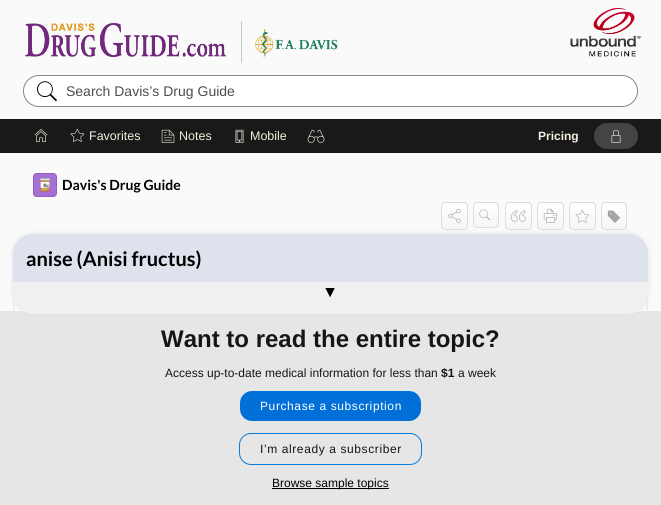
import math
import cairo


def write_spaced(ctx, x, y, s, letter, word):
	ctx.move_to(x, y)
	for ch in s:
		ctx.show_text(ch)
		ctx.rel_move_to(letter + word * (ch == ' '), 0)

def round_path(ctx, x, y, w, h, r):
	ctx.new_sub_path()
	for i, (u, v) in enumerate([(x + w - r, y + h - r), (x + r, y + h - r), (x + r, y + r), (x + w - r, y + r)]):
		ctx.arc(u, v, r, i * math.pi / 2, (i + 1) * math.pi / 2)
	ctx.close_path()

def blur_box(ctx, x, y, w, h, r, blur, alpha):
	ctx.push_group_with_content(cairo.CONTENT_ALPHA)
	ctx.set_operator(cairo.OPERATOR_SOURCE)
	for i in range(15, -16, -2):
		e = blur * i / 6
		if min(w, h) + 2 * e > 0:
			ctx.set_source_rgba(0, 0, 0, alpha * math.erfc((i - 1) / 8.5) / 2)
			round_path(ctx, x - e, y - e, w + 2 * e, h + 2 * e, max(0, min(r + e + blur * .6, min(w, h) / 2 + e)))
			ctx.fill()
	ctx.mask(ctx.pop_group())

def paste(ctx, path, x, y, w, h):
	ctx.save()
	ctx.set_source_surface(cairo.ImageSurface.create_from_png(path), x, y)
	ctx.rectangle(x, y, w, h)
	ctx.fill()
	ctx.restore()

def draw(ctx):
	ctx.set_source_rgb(0.98, 0.98, 0.98)
	ctx.paint()
	paste(ctx, 'media/1.png', 25, 21, 313, 42)
	paste(ctx, 'media/2.png', 570, 8, 71, 49)
	ctx.set_source_rgb(1, 1, 1)
	round_path(ctx, 23.5, 75.5, 614, 31, 15.5)
	ctx.fill_preserve()
	ctx.set_source_rgb(0.529, 0.529, 0.529)
	ctx.set_line_width(1)
	ctx.stroke()
	paste(ctx, 'media/3.png', 37, 81, 20, 21)
	ctx.select_font_face('Liberation Sans')
	ctx.set_font_size(14)
	ctx.set_source_rgb(0.302, 0.302, 0.302)
	ctx.move_to(66, 96)
	ctx.show_text('Search Davis’s Drug Guide')
	ctx.set_source_rgb(0.098, 0.098, 0.098)
	ctx.rectangle(0, 119, 661, 34)
	ctx.fill()
	paste(ctx, 'media/4.png', 34, 129, 14, 13)
	paste(ctx, 'media/5.png', 70, 128, 15, 14)
	ctx.set_font_size(12.5)
	ctx.set_source_rgb(0.961, 0.937, 0.878)
	ctx.move_to(89, 140)
	ctx.show_text('Favorites')
	paste(ctx, 'media/6.png', 161, 129, 14, 14)
	ctx.move_to(179, 140)
	ctx.show_text('Notes')
	paste(ctx, 'media/7.png', 235, 129, 9, 14)
	ctx.move_to(250, 140)
	ctx.show_text('Mobile')
	paste(ctx, 'media/8.png', 307, 129, 18, 14)
	ctx.select_font_face('Liberation Sans', cairo.FONT_SLANT_NORMAL, cairo.FONT_WEIGHT_BOLD)
	ctx.set_font_size(12)
	ctx.move_to(538, 140)
	ctx.show_text('Pricing')
	ctx.set_source_rgb(0.267, 0.267, 0.267)
	round_path(ctx, 594, 123, 44, 26, 13)
	ctx.fill()
	paste(ctx, 'media/9.png', 611, 129, 10, 14)
	paste(ctx, 'media/10.png', 33, 173, 24, 24)
	ctx.select_font_face('Lato', cairo.FONT_SLANT_NORMAL, cairo.FONT_WEIGHT_BOLD)
	ctx.set_font_size(14)
	ctx.set_source_rgb(0, 0, 0)
	ctx.move_to(62, 190)
	ctx.show_text('Davis\'s Drug Guide')
	ctx.save()
	round_path(ctx, 441, 202, 27, 28, 4)
	ctx.clip()
	gradient = cairo.LinearGradient(455, 203, 455, 229)
	gradient.add_color_stop_rgba(0, 1, 1, 1, 1)
	gradient.add_color_stop_rgba(1, 0.961, 0.961, 0.961, 1)
	ctx.set_source(gradient)
	ctx.rectangle(441, 203, 27, 26)
	ctx.fill()
	ctx.restore()
	round_path(ctx, 441.5, 202.5, 26, 27, 3.5)
	ctx.set_source_rgb(0.859, 0.867, 0.875)
	ctx.stroke()
	paste(ctx, 'media/11.png', 448, 208, 13, 15)
	ctx.save()
	round_path(ctx, 473, 202, 26, 26, 4)
	ctx.clip()
	gradient = cairo.LinearGradient(486, 203, 486, 227)
	gradient.add_color_stop_rgba(0, 1, 1, 1, 1)
	gradient.add_color_stop_rgba(1, 0.961, 0.961, 0.961, 1)
	ctx.set_source(gradient)
	ctx.rectangle(473, 203, 26, 24)
	ctx.fill()
	ctx.restore()
	round_path(ctx, 473.5, 202.5, 25, 25, 3.5)
	ctx.stroke()
	paste(ctx, 'media/12.png', 479, 209, 12, 12)
	ctx.save()
	round_path(ctx, 505, 202, 27, 28, 4)
	ctx.clip()
	gradient = cairo.LinearGradient(519, 203, 519, 229)
	gradient.add_color_stop_rgba(0, 1, 1, 1, 1)
	gradient.add_color_stop_rgba(1, 0.961, 0.961, 0.961, 1)
	ctx.set_source(gradient)
	ctx.rectangle(505, 203, 27, 26)
	ctx.fill()
	ctx.restore()
	round_path(ctx, 505.5, 202.5, 26, 27, 3.5)
	ctx.stroke()
	paste(ctx, 'media/13.png', 511, 210, 15, 12)
	ctx.save()
	round_path(ctx, 537, 202, 27, 28, 4)
	ctx.clip()
	gradient = cairo.LinearGradient(551, 203, 551, 229)
	gradient.add_color_stop_rgba(0, 1, 1, 1, 1)
	gradient.add_color_stop_rgba(1, 0.961, 0.961, 0.961, 1)
	ctx.set_source(gradient)
	ctx.rectangle(537, 203, 27, 26)
	ctx.fill()
	ctx.restore()
	round_path(ctx, 537.5, 202.5, 26, 27, 3.5)
	ctx.stroke()
	paste(ctx, 'media/14.png', 543, 208, 14, 15)
	ctx.save()
	round_path(ctx, 569, 202, 27, 28, 4)
	ctx.clip()
	gradient = cairo.LinearGradient(583, 203, 583, 229)
	gradient.add_color_stop_rgba(0, 1, 1, 1, 1)
	gradient.add_color_stop_rgba(1, 0.961, 0.961, 0.961, 1)
	ctx.set_source(gradient)
	ctx.rectangle(569, 203, 27, 26)
	ctx.fill()
	ctx.restore()
	round_path(ctx, 569.5, 202.5, 26, 27, 3.5)
	ctx.stroke()
	paste(ctx, 'media/15.png', 575, 209, 15, 14)
	ctx.save()
	round_path(ctx, 601, 202, 26, 28, 4)
	ctx.clip()
	gradient = cairo.LinearGradient(614, 203, 614, 229)
	gradient.add_color_stop_rgba(0, 1, 1, 1, 1)
	gradient.add_color_stop_rgba(1, 0.961, 0.961, 0.961, 1)
	ctx.set_source(gradient)
	ctx.rectangle(601, 203, 26, 26)
	ctx.fill()
	ctx.restore()
	round_path(ctx, 601.5, 202.5, 25, 27, 3.5)
	ctx.stroke()
	paste(ctx, 'media/16.png', 607, 210, 13, 13)
	ctx.set_source_rgb(1, 1, 1)
	ctx.rectangle(15, 302, 631, 9)
	ctx.fill()
	ctx.set_source_rgb(0.937, 0.937, 0.937)
	ctx.set_fill_rule(cairo.FILL_RULE_EVEN_ODD)
	ctx.new_path()
	ctx.move_to(13, 286)
	ctx.line_to(648, 286)
	ctx.line_to(648, 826)
	ctx.curve_to(648, 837, 639, 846, 628, 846)
	ctx.line_to(33, 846)
	ctx.curve_to(22, 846, 13, 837, 13, 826)
	ctx.close_path()
	ctx.move_to(15, 286)
	ctx.line_to(646, 286)
	ctx.line_to(646, 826)
	ctx.curve_to(646, 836, 638, 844, 628, 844)
	ctx.line_to(33, 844)
	ctx.curve_to(23, 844, 15, 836, 15, 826)
	ctx.close_path()
	ctx.fill()
	ctx.set_source_rgb(0.902, 0.902, 0.902)
	ctx.rectangle(0, 311, 661, 194)
	ctx.fill()
	ctx.set_source_rgb(0.878, 0.878, 0.878)
	blur_box(ctx, 13, 234, 635, 80, 20, 2.5, 1)
	ctx.set_source_rgb(0.941, 0.941, 0.941)
	round_path(ctx, 13, 234, 635, 80, 20)
	ctx.fill()
	ctx.set_source_rgb(0.871, 0.886, 0.929)
	ctx.new_path()
	ctx.move_to(33, 234)
	ctx.line_to(628, 234)
	ctx.curve_to(639, 234, 648, 243, 648, 254)
	ctx.line_to(648, 282)
	ctx.line_to(13, 282)
	ctx.line_to(13, 254)
	ctx.curve_to(13, 243, 22, 234, 33, 234)
	ctx.close_path()
	ctx.fill()
	ctx.set_font_size(20)
	ctx.set_source_rgb(0, 0, 0)
	ctx.move_to(26, 266)
	ctx.show_text('anise (Anisi fructus)')
	ctx.select_font_face('Liberation Serif')
	ctx.set_font_size(16)
	ctx.save()
	ctx.translate(338, 288)
	ctx.rotate(180 * math.pi / 180)
	ctx.move_to(0, 0)
	ctx.show_text('▲')
	ctx.restore()
	ctx.select_font_face('Liberation Sans', cairo.FONT_SLANT_NORMAL, cairo.FONT_WEIGHT_BOLD)
	ctx.set_font_size(24)
	ctx.set_source_rgb(0.086, 0.086, 0.086)
	ctx.move_to(161, 347)
	ctx.show_text('Want to read the entire topic?')
	ctx.select_font_face('Liberation Sans')
	ctx.set_font_size(12)
	ctx.move_to(165, 377)
	ctx.show_text('Access up-to-date medical information for less than')
	ctx.select_font_face('Liberation Sans', cairo.FONT_SLANT_NORMAL, cairo.FONT_WEIGHT_BOLD)
	ctx.move_to(441, 377)
	ctx.show_text('$1')
	ctx.select_font_face('Liberation Sans')
	ctx.move_to(458, 377)
	ctx.show_text('a week')
	ctx.set_source_rgb(0, 0.435, 0.847)
	round_path(ctx, 240, 391, 181, 30, 12)
	ctx.fill()
	ctx.set_source_rgb(1, 1, 1)
	write_spaced(ctx, 260, 410, 'Purchase a subscription', 0.6, 0)
	round_path(ctx, 239.5, 433.5, 182, 31, 11.5)
	ctx.set_source_rgb(0.035, 0.482, 0.851)
	ctx.stroke()
	ctx.set_source_rgb(0.086, 0.086, 0.086)
	write_spaced(ctx, 260, 453, 'I’m already a subscriber', 0.6, 0)
	ctx.set_source_rgb(0, 0, 0)
	ctx.rectangle(272, 488, 117, 1)
	ctx.fill()
	ctx.move_to(272, 487)
	ctx.show_text('Browse sample topics')


surface = cairo.ImageSurface(cairo.FORMAT_RGB24, 661, 505)
ctx = cairo.Context(surface)
options = cairo.FontOptions()
options.set_hint_metrics(cairo.HINT_METRICS_OFF)
options.set_hint_style(cairo.HINT_STYLE_NONE)
ctx.set_font_options(options)
ctx.set_miter_limit(4)
draw(ctx)
surface.write_to_png('image.png')
